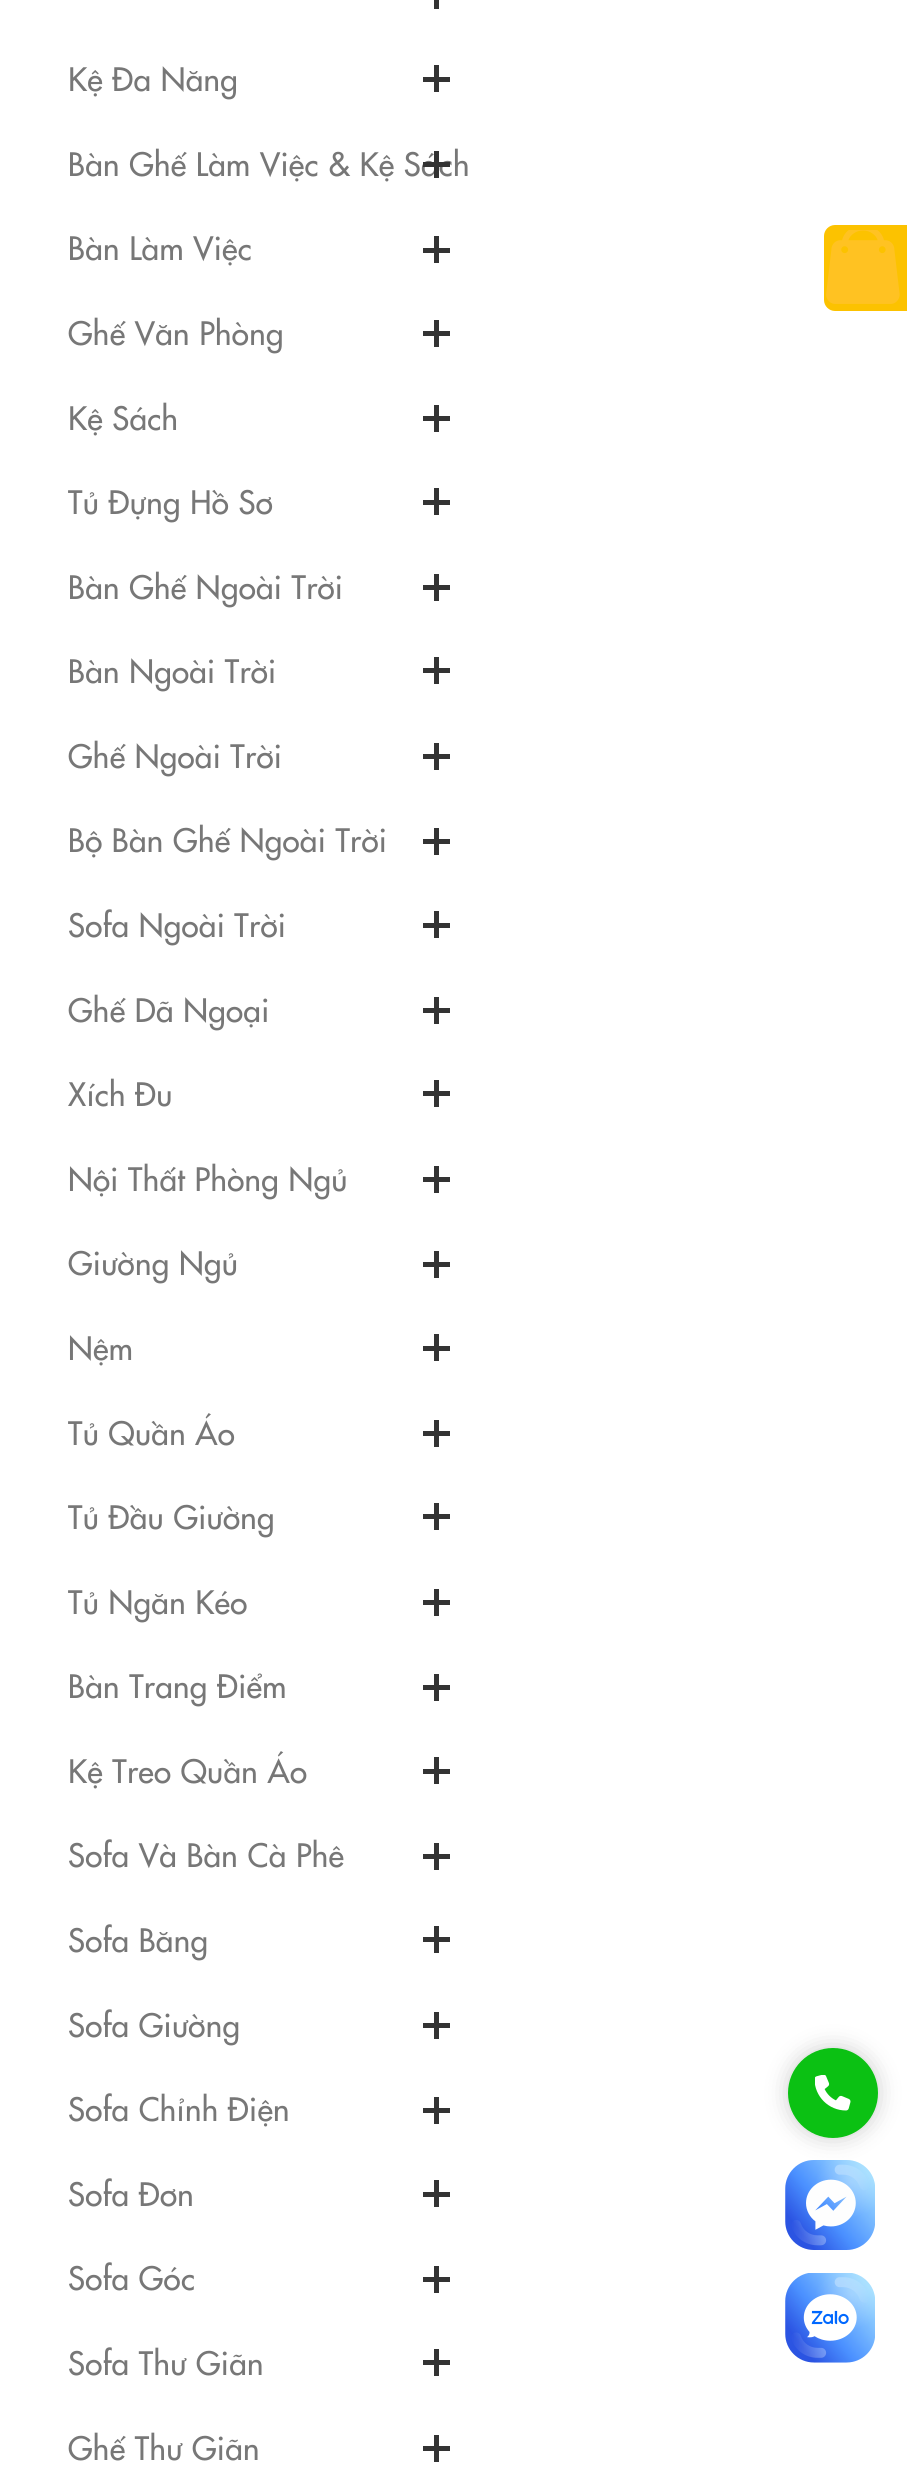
import math
import cairo


def write_spaced(ctx, x, y, s, letter, word):
	ctx.move_to(x, y)
	for ch in s:
		ctx.show_text(ch)
		ctx.rel_move_to(letter + word * (ch == ' '), 0)

def round_path(ctx, x, y, w, h, r):
	ctx.new_sub_path()
	for i, (u, v) in enumerate([(x + w - r, y + h - r), (x + r, y + h - r), (x + r, y + r), (x + w - r, y + r)]):
		ctx.arc(u, v, r, i * math.pi / 2, (i + 1) * math.pi / 2)
	ctx.close_path()

def blur_box(ctx, x, y, w, h, r, blur, alpha):
	ctx.push_group_with_content(cairo.CONTENT_ALPHA)
	ctx.set_operator(cairo.OPERATOR_SOURCE)
	for i in range(15, -16, -2):
		e = blur * i / 6
		if min(w, h) + 2 * e > 0:
			ctx.set_source_rgba(0, 0, 0, alpha * math.erfc((i - 1) / 8.5) / 2)
			round_path(ctx, x - e, y - e, w + 2 * e, h + 2 * e, max(0, min(r + e + blur * .6, min(w, h) / 2 + e)))
			ctx.fill()
	ctx.mask(ctx.pop_group())

def paste(ctx, path, x, y, w, h):
	ctx.save()
	ctx.set_source_surface(cairo.ImageSurface.create_from_png(path), x, y)
	ctx.rectangle(x, y, w, h)
	ctx.fill()
	ctx.restore()

def draw(ctx):
	ctx.set_source_rgb(1, 1, 1)
	ctx.paint()
	ctx.set_source_rgb(0.2, 0.2, 0.2)
	ctx.rectangle(434, 0, 5, 9)
	ctx.fill()
	ctx.select_font_face('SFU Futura')
	ctx.set_font_size(31.5)
	ctx.set_source_rgb(0.467, 0.467, 0.467)
	write_spaced(ctx, 68, 91, 'Kệ Đa Năng', 0.3, 0)
	ctx.set_source_rgb(0.2, 0.2, 0.2)
	ctx.rectangle(423, 77, 27, 5)
	ctx.fill()
	ctx.rectangle(434, 65, 5, 27)
	ctx.fill()
	ctx.set_source_rgb(0.467, 0.467, 0.467)
	write_spaced(ctx, 68, 176, 'Bàn Ghế Làm Việc & Kệ Sách', 0.3, 0)
	ctx.set_source_rgb(0.2, 0.2, 0.2)
	ctx.rectangle(423, 162, 27, 5)
	ctx.fill()
	ctx.rectangle(434, 151, 5, 27)
	ctx.fill()
	ctx.set_source_rgb(0.467, 0.467, 0.467)
	write_spaced(ctx, 68, 260, 'Bàn Làm Việc', 0.3, 0)
	ctx.set_source_rgb(0.2, 0.2, 0.2)
	ctx.rectangle(423, 248, 27, 5)
	ctx.fill()
	ctx.rectangle(434, 236, 5, 27)
	ctx.fill()
	ctx.set_source_rgb(0.467, 0.467, 0.467)
	write_spaced(ctx, 68, 345, 'Ghế Văn Phòng', 0.3, 0)
	ctx.set_source_rgb(0.2, 0.2, 0.2)
	ctx.rectangle(423, 331, 27, 5)
	ctx.fill()
	ctx.rectangle(434, 320, 5, 27)
	ctx.fill()
	ctx.set_source_rgb(0.467, 0.467, 0.467)
	write_spaced(ctx, 68, 430, 'Kệ Sách', 0.3, 0)
	ctx.set_source_rgb(0.2, 0.2, 0.2)
	ctx.rectangle(423, 416, 27, 5)
	ctx.fill()
	ctx.rectangle(434, 405, 5, 27)
	ctx.fill()
	ctx.set_source_rgb(0.467, 0.467, 0.467)
	write_spaced(ctx, 68, 514, 'Tủ Đựng Hồ Sơ', 0.3, 0)
	ctx.set_source_rgb(0.2, 0.2, 0.2)
	ctx.rectangle(423, 500, 27, 5)
	ctx.fill()
	ctx.rectangle(434, 488, 5, 27)
	ctx.fill()
	ctx.set_source_rgb(0.467, 0.467, 0.467)
	write_spaced(ctx, 68, 599, 'Bàn Ghế Ngoài Trời', 0.3, 0)
	ctx.set_source_rgb(0.2, 0.2, 0.2)
	ctx.rectangle(423, 585, 27, 5)
	ctx.fill()
	ctx.rectangle(434, 574, 5, 27)
	ctx.fill()
	ctx.set_source_rgb(0.467, 0.467, 0.467)
	write_spaced(ctx, 68, 683, 'Bàn Ngoài Trời', 0.3, 0)
	ctx.set_source_rgb(0.2, 0.2, 0.2)
	ctx.rectangle(423, 668, 27, 5)
	ctx.fill()
	ctx.rectangle(434, 657, 5, 27)
	ctx.fill()
	ctx.set_source_rgb(0.467, 0.467, 0.467)
	write_spaced(ctx, 68, 768, 'Ghế Ngoài Trời', 0.3, 0)
	ctx.set_source_rgb(0.2, 0.2, 0.2)
	ctx.rectangle(423, 754, 27, 5)
	ctx.fill()
	ctx.rectangle(434, 743, 5, 27)
	ctx.fill()
	ctx.set_source_rgb(0.467, 0.467, 0.467)
	write_spaced(ctx, 68, 852, 'Bộ Bàn Ghế Ngoài Trời', 0.3, 0)
	ctx.set_source_rgb(0.2, 0.2, 0.2)
	ctx.rectangle(423, 839, 27, 5)
	ctx.fill()
	ctx.rectangle(434, 828, 5, 27)
	ctx.fill()
	ctx.set_source_rgb(0.467, 0.467, 0.467)
	write_spaced(ctx, 68, 937, 'Sofa Ngoài Trời', 0.3, 0)
	ctx.set_source_rgb(0.2, 0.2, 0.2)
	ctx.rectangle(423, 923, 27, 5)
	ctx.fill()
	ctx.rectangle(434, 911, 5, 27)
	ctx.fill()
	ctx.set_source_rgb(0.467, 0.467, 0.467)
	write_spaced(ctx, 68, 1022, 'Ghế Dã Ngoại', 0.3, 0)
	ctx.set_source_rgb(0.2, 0.2, 0.2)
	ctx.rectangle(423, 1008, 27, 5)
	ctx.fill()
	ctx.rectangle(434, 997, 5, 27)
	ctx.fill()
	ctx.set_source_rgb(0.467, 0.467, 0.467)
	write_spaced(ctx, 68, 1106, 'Xích Đu', 0.3, 0)
	ctx.set_source_rgb(0.2, 0.2, 0.2)
	ctx.rectangle(423, 1091, 27, 5)
	ctx.fill()
	ctx.rectangle(434, 1080, 5, 27)
	ctx.fill()
	ctx.set_source_rgb(0.467, 0.467, 0.467)
	write_spaced(ctx, 68, 1191, 'Nội Thất Phòng Ngủ', 0.3, 0)
	ctx.set_source_rgb(0.2, 0.2, 0.2)
	ctx.rectangle(423, 1177, 27, 5)
	ctx.fill()
	ctx.rectangle(434, 1166, 5, 27)
	ctx.fill()
	ctx.set_source_rgb(0.467, 0.467, 0.467)
	write_spaced(ctx, 68, 1275, 'Giường Ngủ', 0.3, 0)
	ctx.set_source_rgb(0.2, 0.2, 0.2)
	ctx.rectangle(423, 1262, 27, 5)
	ctx.fill()
	ctx.rectangle(434, 1251, 5, 27)
	ctx.fill()
	ctx.set_source_rgb(0.467, 0.467, 0.467)
	write_spaced(ctx, 68, 1360, 'Nệm', 0.3, 0)
	ctx.set_source_rgb(0.2, 0.2, 0.2)
	ctx.rectangle(423, 1346, 27, 5)
	ctx.fill()
	ctx.rectangle(434, 1334, 5, 27)
	ctx.fill()
	ctx.set_source_rgb(0.467, 0.467, 0.467)
	write_spaced(ctx, 68, 1445, 'Tủ Quần Áo', 0.3, 0)
	ctx.set_source_rgb(0.2, 0.2, 0.2)
	ctx.rectangle(423, 1431, 27, 5)
	ctx.fill()
	ctx.rectangle(434, 1420, 5, 27)
	ctx.fill()
	ctx.set_source_rgb(0.467, 0.467, 0.467)
	write_spaced(ctx, 68, 1529, 'Tủ Đầu Giường', 0.3, 0)
	ctx.set_source_rgb(0.2, 0.2, 0.2)
	ctx.rectangle(423, 1514, 27, 5)
	ctx.fill()
	ctx.rectangle(434, 1503, 5, 27)
	ctx.fill()
	ctx.set_source_rgb(0.467, 0.467, 0.467)
	write_spaced(ctx, 68, 1614, 'Tủ Ngăn Kéo', 0.3, 0)
	ctx.set_source_rgb(0.2, 0.2, 0.2)
	ctx.rectangle(423, 1600, 27, 5)
	ctx.fill()
	ctx.rectangle(434, 1589, 5, 27)
	ctx.fill()
	ctx.set_source_rgb(0.467, 0.467, 0.467)
	write_spaced(ctx, 68, 1698, 'Bàn Trang Điểm', 0.3, 0)
	ctx.set_source_rgb(0.2, 0.2, 0.2)
	ctx.rectangle(423, 1685, 27, 5)
	ctx.fill()
	ctx.rectangle(434, 1674, 5, 27)
	ctx.fill()
	ctx.set_source_rgb(0.467, 0.467, 0.467)
	write_spaced(ctx, 68, 1783, 'Kệ Treo Quần Áo', 0.3, 0)
	ctx.set_source_rgb(0.2, 0.2, 0.2)
	ctx.rectangle(423, 1769, 27, 5)
	ctx.fill()
	ctx.rectangle(434, 1757, 5, 27)
	ctx.fill()
	ctx.set_source_rgb(0.467, 0.467, 0.467)
	write_spaced(ctx, 68, 1867, 'Sofa Và Bàn Cà Phê', 0.3, 0)
	ctx.set_source_rgb(0.2, 0.2, 0.2)
	ctx.rectangle(423, 1854, 27, 5)
	ctx.fill()
	ctx.rectangle(434, 1843, 5, 27)
	ctx.fill()
	ctx.set_source_rgb(0.467, 0.467, 0.467)
	write_spaced(ctx, 68, 1952, 'Sofa Băng', 0.3, 0)
	ctx.set_source_rgb(0.2, 0.2, 0.2)
	ctx.rectangle(423, 1937, 27, 5)
	ctx.fill()
	ctx.rectangle(434, 1926, 5, 27)
	ctx.fill()
	ctx.set_source_rgb(0.467, 0.467, 0.467)
	write_spaced(ctx, 68, 2037, 'Sofa Giường', 0.3, 0)
	ctx.set_source_rgb(0.2, 0.2, 0.2)
	ctx.rectangle(423, 2023, 27, 5)
	ctx.fill()
	ctx.rectangle(434, 2012, 5, 27)
	ctx.fill()
	ctx.set_source_rgb(0.467, 0.467, 0.467)
	write_spaced(ctx, 68, 2121, 'Sofa Chỉnh Điện', 0.3, 0)
	ctx.set_source_rgb(0.2, 0.2, 0.2)
	ctx.rectangle(423, 2108, 27, 5)
	ctx.fill()
	ctx.rectangle(434, 2097, 5, 27)
	ctx.fill()
	ctx.set_source_rgb(0.467, 0.467, 0.467)
	write_spaced(ctx, 68, 2206, 'Sofa Đơn', 0.3, 0)
	ctx.set_source_rgb(0.2, 0.2, 0.2)
	ctx.rectangle(423, 2192, 27, 5)
	ctx.fill()
	ctx.rectangle(434, 2180, 5, 27)
	ctx.fill()
	ctx.set_source_rgb(0.467, 0.467, 0.467)
	write_spaced(ctx, 68, 2290, 'Sofa Góc', 0.3, 0)
	ctx.set_source_rgb(0.2, 0.2, 0.2)
	ctx.rectangle(423, 2277, 27, 5)
	ctx.fill()
	ctx.rectangle(434, 2266, 5, 27)
	ctx.fill()
	ctx.set_source_rgb(0.467, 0.467, 0.467)
	write_spaced(ctx, 68, 2375, 'Sofa Thư Giãn', 0.3, 0)
	ctx.set_source_rgb(0.2, 0.2, 0.2)
	ctx.rectangle(423, 2360, 27, 5)
	ctx.fill()
	ctx.rectangle(434, 2349, 5, 27)
	ctx.fill()
	ctx.set_source_rgb(0.467, 0.467, 0.467)
	write_spaced(ctx, 68, 2460, 'Ghế Thư Giãn', 0.3, 0)
	ctx.set_source_rgb(0.2, 0.2, 0.2)
	ctx.rectangle(423, 2446, 27, 5)
	ctx.fill()
	ctx.rectangle(434, 2435, 5, 27)
	ctx.fill()
	ctx.set_source_rgb(0.988, 0.761, 0)
	ctx.new_path()
	ctx.move_to(835, 225)
	ctx.line_to(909, 225)
	ctx.line_to(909, 311)
	ctx.line_to(835, 311)
	ctx.curve_to(829, 311, 824, 306, 824, 300)
	ctx.line_to(824, 236)
	ctx.curve_to(824, 230, 829, 225, 835, 225)
	ctx.close_path()
	ctx.fill()
	paste(ctx, 'media/1.png', 826, 230, 74, 74)
	ctx.set_source_rgb(0, 0, 0)
	blur_box(ctx, 788, 2048, 90, 90, 45, 11, 0.2)
	ctx.set_source_rgb(0.043, 0.757, 0.078)
	ctx.arc(833, 2093, 45, 0, 2 * math.pi)
	ctx.fill()
	paste(ctx, 'media/2.png', 815, 2075, 36, 36)
	paste(ctx, 'media/3.png', 785, 2160, 90, 90)
	paste(ctx, 'media/4.png', 785, 2273, 90, 90)


surface = cairo.ImageSurface(cairo.FORMAT_RGB24, 907, 2473)
ctx = cairo.Context(surface)
options = cairo.FontOptions()
options.set_hint_metrics(cairo.HINT_METRICS_OFF)
options.set_hint_style(cairo.HINT_STYLE_NONE)
ctx.set_font_options(options)
ctx.set_miter_limit(4)
draw(ctx)
surface.write_to_png('image.png')
